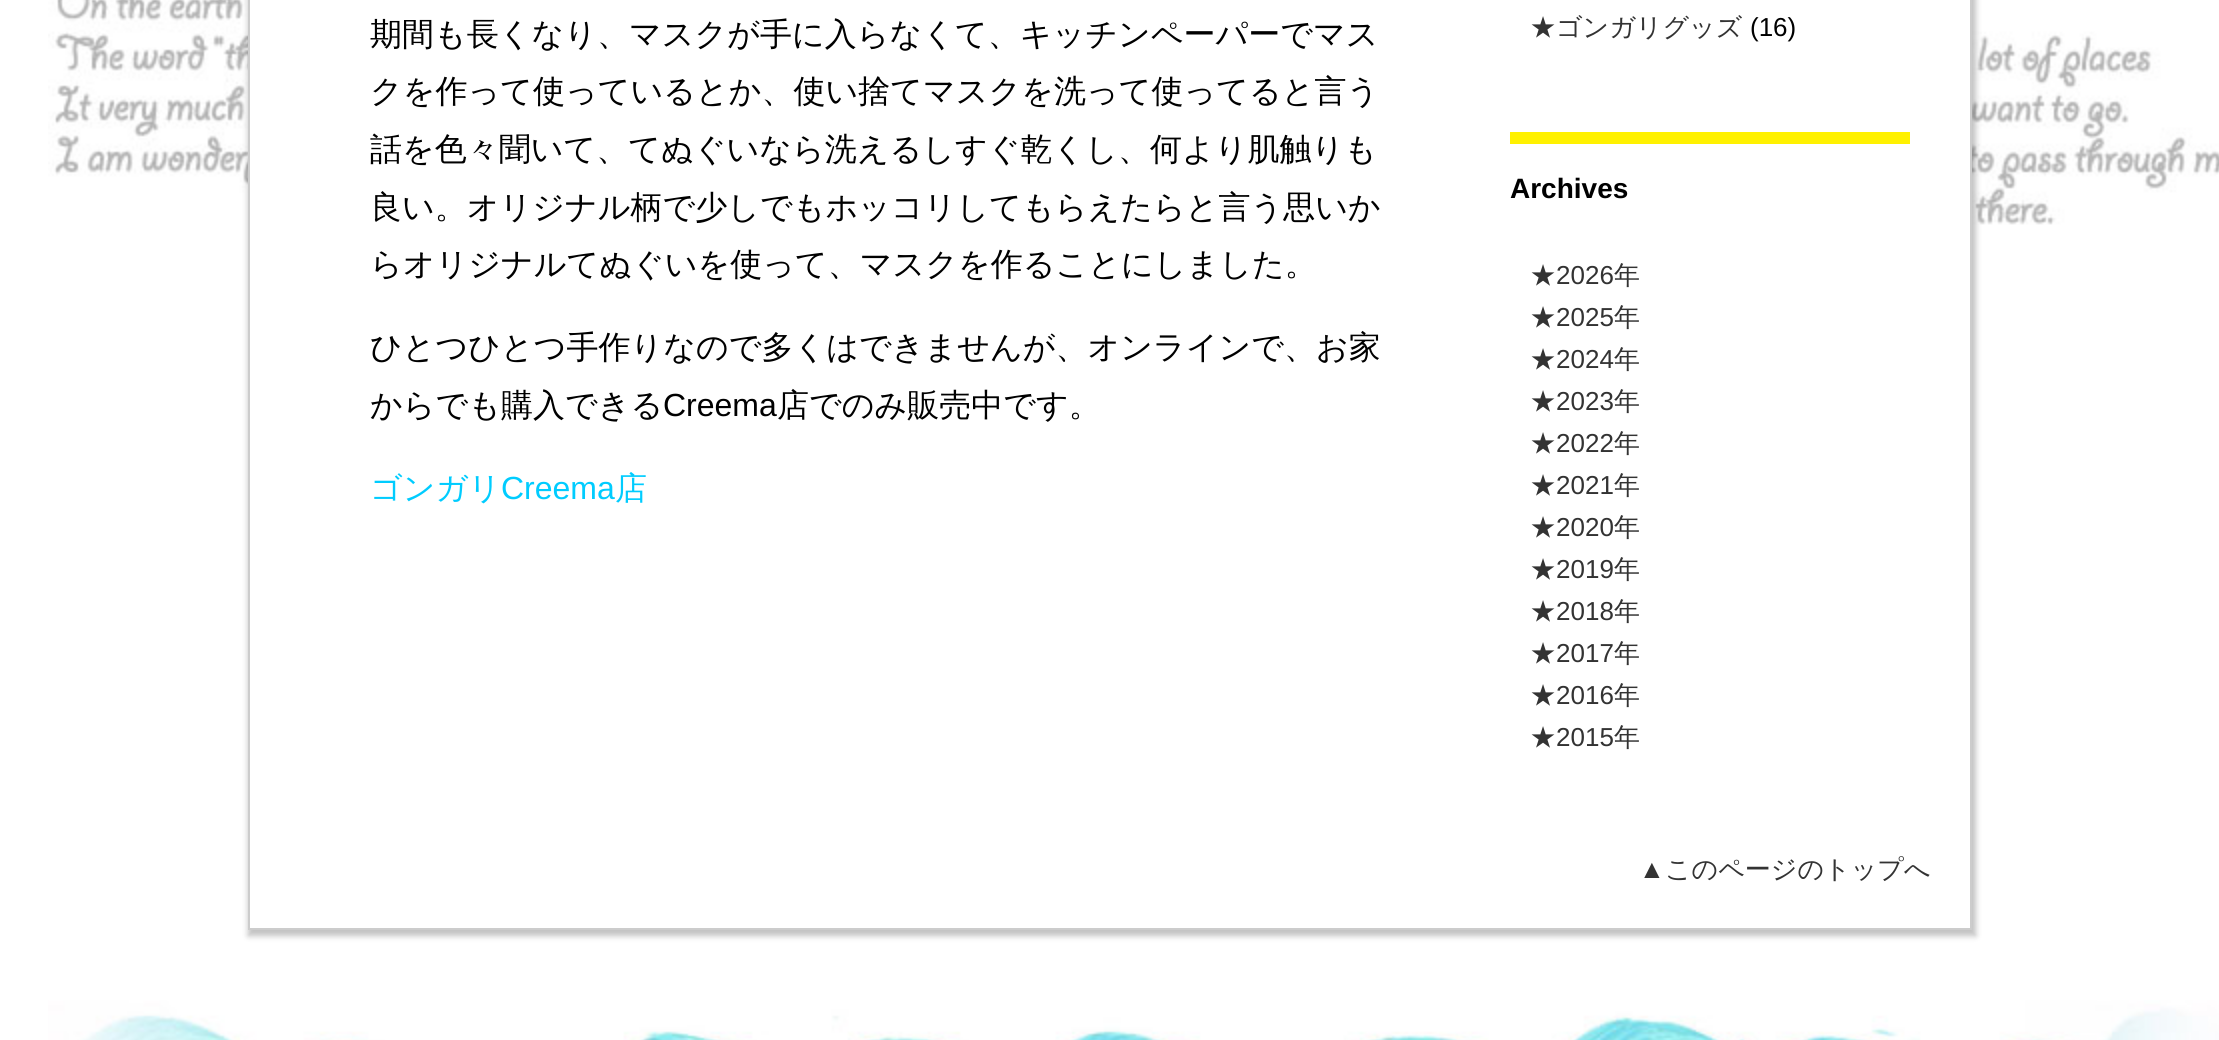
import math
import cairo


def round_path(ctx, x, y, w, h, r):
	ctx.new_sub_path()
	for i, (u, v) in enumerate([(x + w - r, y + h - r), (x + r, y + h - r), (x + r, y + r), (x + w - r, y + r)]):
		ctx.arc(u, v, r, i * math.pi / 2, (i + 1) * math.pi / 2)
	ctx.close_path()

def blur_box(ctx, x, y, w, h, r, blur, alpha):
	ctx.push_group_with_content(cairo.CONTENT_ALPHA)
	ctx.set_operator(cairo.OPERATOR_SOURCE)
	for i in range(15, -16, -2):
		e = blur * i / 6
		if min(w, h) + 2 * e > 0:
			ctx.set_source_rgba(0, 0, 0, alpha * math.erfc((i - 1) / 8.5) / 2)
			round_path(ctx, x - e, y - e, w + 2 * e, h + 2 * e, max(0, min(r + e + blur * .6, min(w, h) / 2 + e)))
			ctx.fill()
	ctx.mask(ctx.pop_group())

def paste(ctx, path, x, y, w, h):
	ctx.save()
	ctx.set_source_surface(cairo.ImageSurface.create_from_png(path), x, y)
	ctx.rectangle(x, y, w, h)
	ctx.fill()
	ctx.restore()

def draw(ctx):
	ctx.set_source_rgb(1, 1, 1)
	ctx.paint()
	paste(ctx, 'media/1.png', 48, 0, 2171, 1040)
	ctx.set_source_rgb(0.2, 0.2, 0.2)
	blur_box(ctx, 248, -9, 1728, 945, 0, 3, 0.3)
	ctx.set_source_rgb(1, 1, 1)
	ctx.rectangle(249, -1, 1722, 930)
	ctx.fill_preserve()
	ctx.set_source_rgb(0.8, 0.8, 0.8)
	ctx.stroke()
	ctx.select_font_face('WenQuanYi Zen Hei Medium')
	ctx.set_font_size(32)
	ctx.set_source_rgb(0, 0, 0)
	for x, y, s in [
		(370, 45, '期間も長くなり、マスクが手に入らなくて、キッチンペーパーでマス'),
		(370, 102, 'クを作って使っているとか、使い捨てマスクを洗って使ってると言う'),
		(370, 160, '話を色々聞いて、てぬぐいなら洗えるしすぐ乾くし、何より肌触りも'),
		(370, 218, '良い。オリジナル柄で少しでもホッコリしてもらえたらと言う思いか'),
		(370, 275, 'らオリジナルてぬぐいを使って、マスクを作ることにしました。'),
		(370, 358, 'ひとつひとつ手作りなので多くはできませんが、オンラインで、お家'),
		(370, 416, 'からでも購入できる'),
	]:
		ctx.move_to(x, y)
		ctx.show_text(s)
	ctx.select_font_face('Liberation Sans')
	ctx.move_to(663, 416)
	ctx.show_text('Creema')
	ctx.select_font_face('WenQuanYi Zen Hei Medium')
	ctx.move_to(777, 416)
	ctx.show_text('店でのみ販売中です。')
	ctx.set_source_rgb(0, 0.8, 1)
	ctx.move_to(370, 499)
	ctx.show_text('ゴンガリ')
	ctx.select_font_face('Liberation Sans')
	ctx.move_to(501, 499)
	ctx.show_text('Creema')
	ctx.select_font_face('WenQuanYi Zen Hei Medium')
	ctx.move_to(615, 499)
	ctx.show_text('店')
	ctx.set_font_size(26)
	ctx.set_source_rgb(0.2, 0.2, 0.2)
	ctx.move_to(1530, 36)
	ctx.show_text('★ゴンガリグッズ')
	ctx.select_font_face('Liberation Sans')
	ctx.set_source_rgb(0, 0, 0)
	ctx.move_to(1750, 36)
	ctx.show_text('(16)')
	ctx.set_source_rgb(1, 0.945, 0)
	ctx.rectangle(1510, 132, 400, 12)
	ctx.fill()
	ctx.select_font_face('Liberation Sans', cairo.FONT_SLANT_NORMAL, cairo.FONT_WEIGHT_BOLD)
	ctx.set_font_size(28)
	ctx.set_source_rgb(0, 0, 0)
	ctx.move_to(1510, 198)
	ctx.show_text('Archives')
	ctx.select_font_face('WenQuanYi Zen Hei Medium')
	ctx.set_font_size(26)
	ctx.set_source_rgb(0.2, 0.2, 0.2)
	ctx.move_to(1530, 284)
	ctx.show_text('★')
	ctx.select_font_face('Liberation Sans')
	ctx.move_to(1556, 284)
	ctx.show_text('2026')
	ctx.select_font_face('WenQuanYi Zen Hei Medium')
	ctx.move_to(1614, 284)
	ctx.show_text('年')
	ctx.move_to(1530, 326)
	ctx.show_text('★')
	ctx.select_font_face('Liberation Sans')
	ctx.move_to(1556, 326)
	ctx.show_text('2025')
	ctx.select_font_face('WenQuanYi Zen Hei Medium')
	ctx.move_to(1614, 326)
	ctx.show_text('年')
	ctx.move_to(1530, 368)
	ctx.show_text('★')
	ctx.select_font_face('Liberation Sans')
	ctx.move_to(1556, 368)
	ctx.show_text('2024')
	ctx.select_font_face('WenQuanYi Zen Hei Medium')
	ctx.move_to(1614, 368)
	ctx.show_text('年')
	ctx.move_to(1530, 410)
	ctx.show_text('★')
	ctx.select_font_face('Liberation Sans')
	ctx.move_to(1556, 410)
	ctx.show_text('2023')
	ctx.select_font_face('WenQuanYi Zen Hei Medium')
	ctx.move_to(1614, 410)
	ctx.show_text('年')
	ctx.move_to(1530, 452)
	ctx.show_text('★')
	ctx.select_font_face('Liberation Sans')
	ctx.move_to(1556, 452)
	ctx.show_text('2022')
	ctx.select_font_face('WenQuanYi Zen Hei Medium')
	ctx.move_to(1614, 452)
	ctx.show_text('年')
	ctx.move_to(1530, 494)
	ctx.show_text('★')
	ctx.select_font_face('Liberation Sans')
	ctx.move_to(1556, 494)
	ctx.show_text('2021')
	ctx.select_font_face('WenQuanYi Zen Hei Medium')
	ctx.move_to(1614, 494)
	ctx.show_text('年')
	ctx.move_to(1530, 536)
	ctx.show_text('★')
	ctx.select_font_face('Liberation Sans')
	ctx.move_to(1556, 536)
	ctx.show_text('2020')
	ctx.select_font_face('WenQuanYi Zen Hei Medium')
	ctx.move_to(1614, 536)
	ctx.show_text('年')
	ctx.move_to(1530, 578)
	ctx.show_text('★')
	ctx.select_font_face('Liberation Sans')
	ctx.move_to(1556, 578)
	ctx.show_text('2019')
	ctx.select_font_face('WenQuanYi Zen Hei Medium')
	ctx.move_to(1614, 578)
	ctx.show_text('年')
	ctx.move_to(1530, 620)
	ctx.show_text('★')
	ctx.select_font_face('Liberation Sans')
	ctx.move_to(1556, 620)
	ctx.show_text('2018')
	ctx.select_font_face('WenQuanYi Zen Hei Medium')
	ctx.move_to(1614, 620)
	ctx.show_text('年')
	ctx.move_to(1530, 662)
	ctx.show_text('★')
	ctx.select_font_face('Liberation Sans')
	ctx.move_to(1556, 662)
	ctx.show_text('2017')
	ctx.select_font_face('WenQuanYi Zen Hei Medium')
	ctx.move_to(1614, 662)
	ctx.show_text('年')
	ctx.move_to(1530, 704)
	ctx.show_text('★')
	ctx.select_font_face('Liberation Sans')
	ctx.move_to(1556, 704)
	ctx.show_text('2016')
	ctx.select_font_face('WenQuanYi Zen Hei Medium')
	ctx.move_to(1614, 704)
	ctx.show_text('年')
	ctx.move_to(1530, 746)
	ctx.show_text('★')
	ctx.select_font_face('Liberation Sans')
	ctx.move_to(1556, 746)
	ctx.show_text('2015')
	ctx.select_font_face('WenQuanYi Zen Hei Medium')
	ctx.move_to(1614, 746)
	ctx.show_text('年')
	ctx.select_font_face('Liberation Sans')
	ctx.move_to(1639, 878)
	ctx.show_text('▲')
	ctx.select_font_face('WenQuanYi Zen Hei Medium')
	ctx.move_to(1665, 878)
	ctx.show_text('このページのトップへ')


surface = cairo.ImageSurface(cairo.FORMAT_RGB24, 2219, 1040)
ctx = cairo.Context(surface)
options = cairo.FontOptions()
options.set_hint_metrics(cairo.HINT_METRICS_OFF)
options.set_hint_style(cairo.HINT_STYLE_NONE)
ctx.set_font_options(options)
ctx.set_miter_limit(4)
draw(ctx)
surface.write_to_png('image.png')
